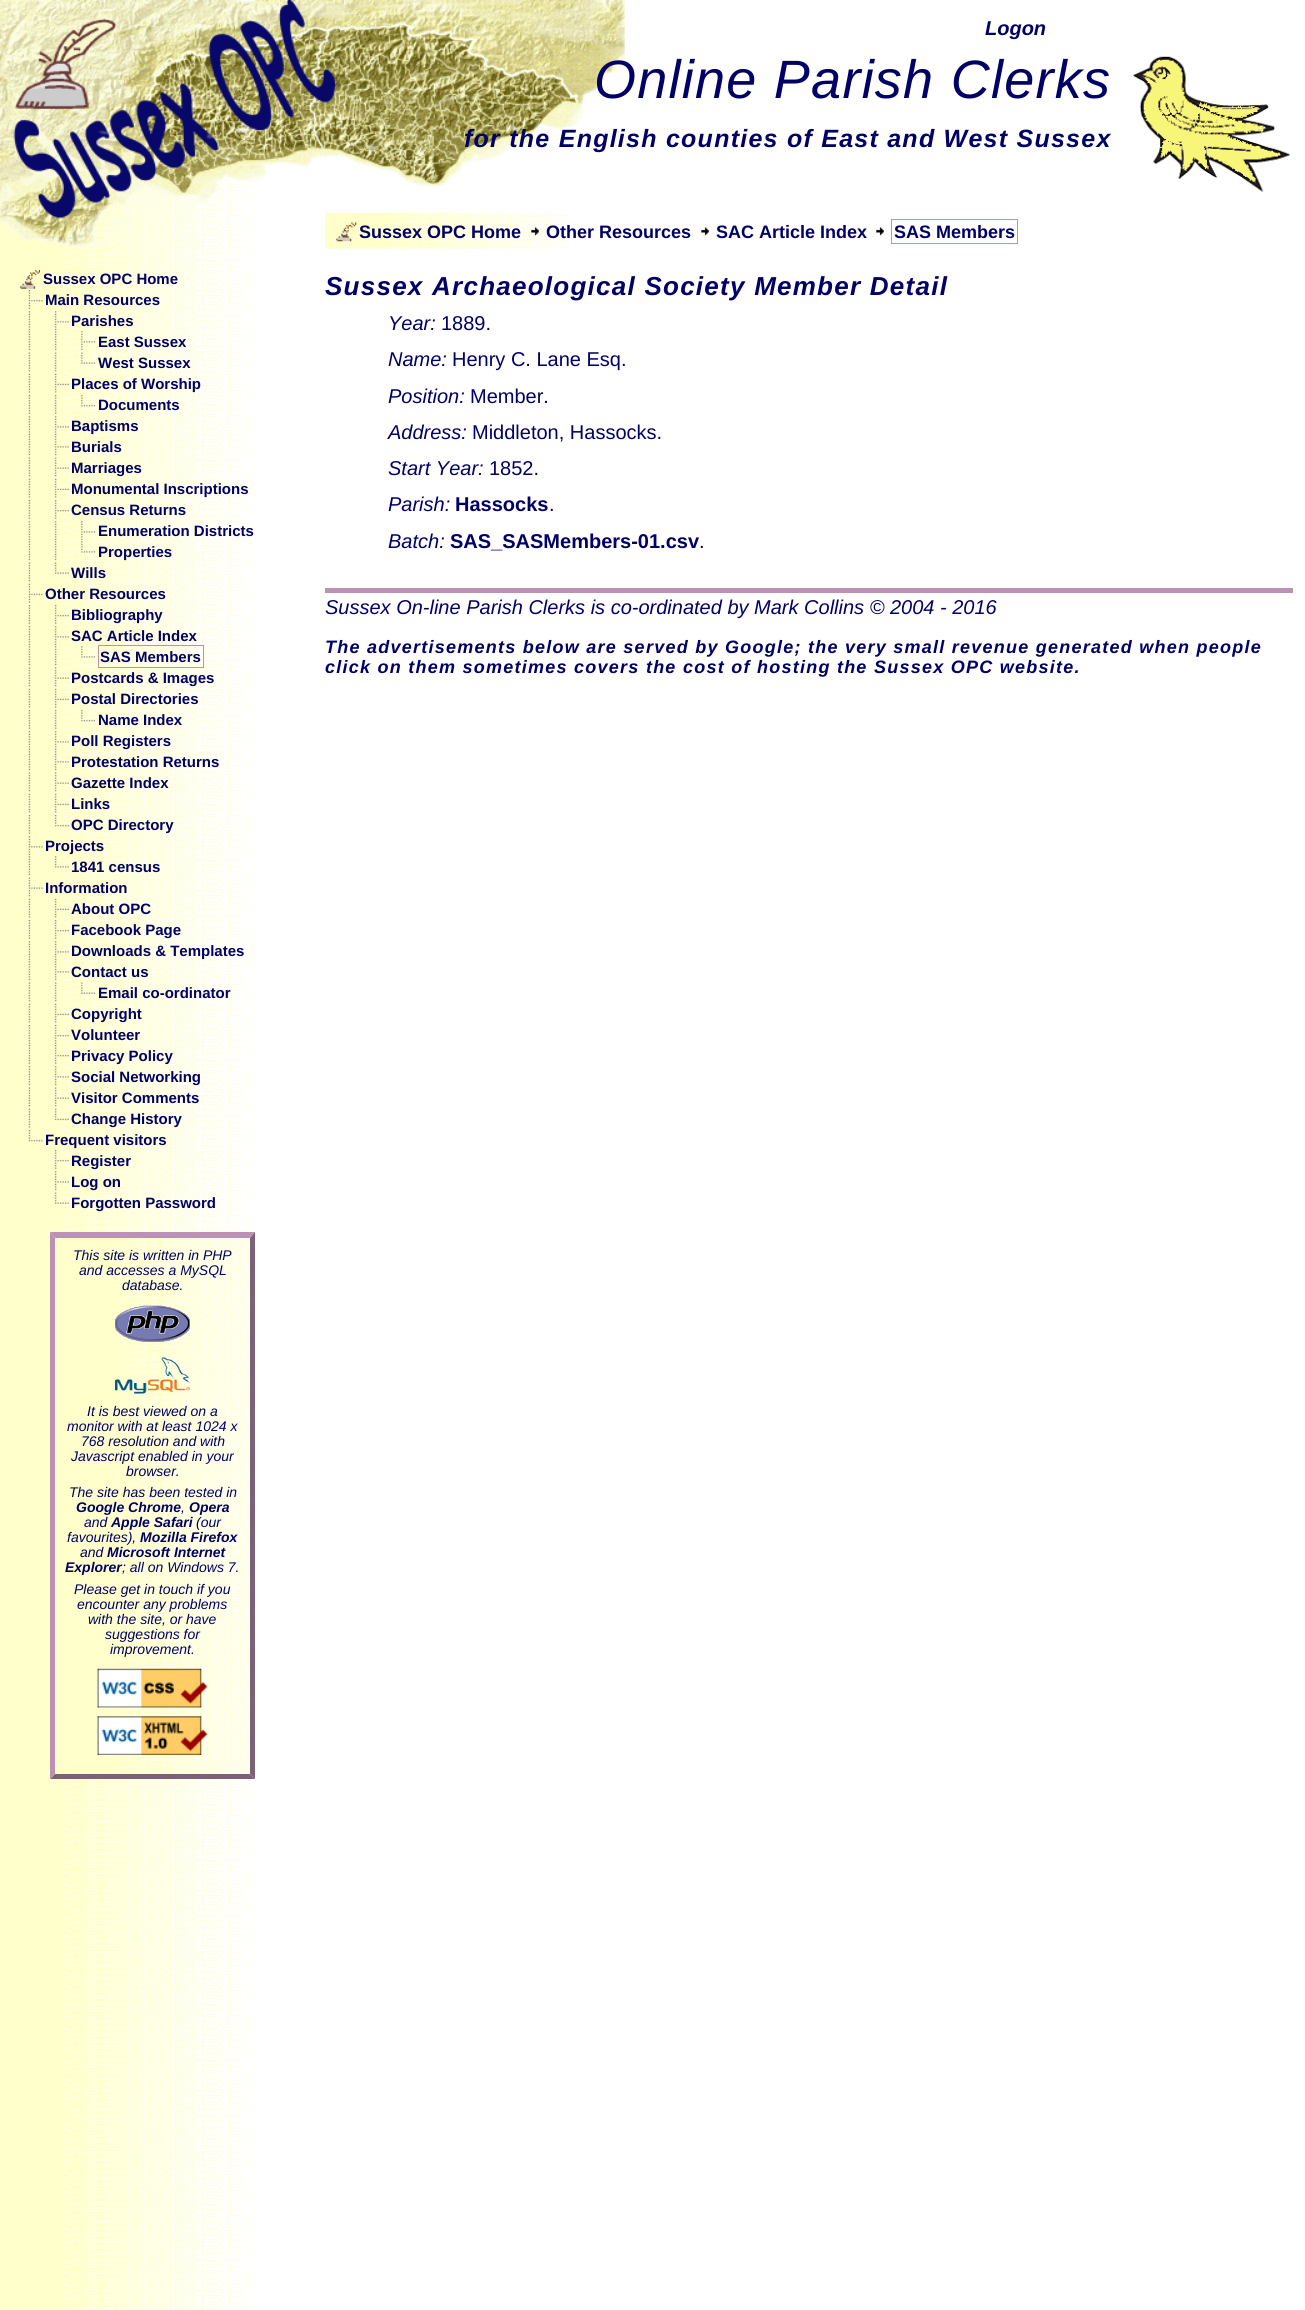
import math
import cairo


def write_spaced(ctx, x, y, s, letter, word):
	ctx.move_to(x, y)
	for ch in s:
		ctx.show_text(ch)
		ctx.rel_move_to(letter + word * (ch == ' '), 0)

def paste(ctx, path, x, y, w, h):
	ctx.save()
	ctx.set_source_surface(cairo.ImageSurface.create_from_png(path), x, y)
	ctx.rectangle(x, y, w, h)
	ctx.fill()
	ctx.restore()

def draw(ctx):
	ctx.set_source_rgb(1, 1, 1)
	ctx.paint()
	paste(ctx, 'media/1.png', 0, 0, 252, 2310)
	paste(ctx, 'media/2.png', 0, 0, 625, 250)
	ctx.select_font_face('Liberation Sans', cairo.FONT_SLANT_ITALIC, cairo.FONT_WEIGHT_BOLD)
	ctx.set_font_size(20)
	ctx.set_source_rgb(0, 0, 0.4)
	ctx.move_to(985, 35)
	ctx.show_text('Logon')
	ctx.select_font_face('Liberation Sans', cairo.FONT_SLANT_ITALIC)
	ctx.set_font_size(54)
	write_spaced(ctx, 594, 98, 'Online Parish Clerks', 1.25, 0)
	paste(ctx, 'media/3.png', 1133, 56, 157, 137)
	ctx.select_font_face('Liberation Sans', cairo.FONT_SLANT_ITALIC, cairo.FONT_WEIGHT_BOLD)
	ctx.set_font_size(25)
	write_spaced(ctx, 464, 147, 'for the English counties of East and West Sussex', 1.25, 0)
	paste(ctx, 'media/4.png', 19, 269, 21, 20)
	ctx.select_font_face('Liberation Sans', cairo.FONT_SLANT_NORMAL, cairo.FONT_WEIGHT_BOLD)
	ctx.set_font_size(15)
	ctx.move_to(43, 284)
	ctx.show_text('Sussex OPC Home')
	paste(ctx, 'media/5.png', 28, 290, 15, 19)
	ctx.move_to(45, 305)
	ctx.show_text('Main Resources')
	paste(ctx, 'media/6.png', 28, 311, 3, 20)
	paste(ctx, 'media/7.png', 54, 311, 15, 20)
	ctx.move_to(71, 326)
	ctx.show_text('Parishes')
	paste(ctx, 'media/6.png', 28, 331, 3, 20)
	paste(ctx, 'media/8.png', 54, 331, 3, 20)
	paste(ctx, 'media/9.png', 81, 331, 14, 20)
	ctx.move_to(98, 347)
	ctx.show_text('East Sussex')
	paste(ctx, 'media/10.png', 28, 352, 3, 20)
	paste(ctx, 'media/11.png', 54, 352, 3, 20)
	paste(ctx, 'media/12.png', 81, 352, 14, 12)
	ctx.move_to(98, 368)
	ctx.show_text('West Sussex')
	paste(ctx, 'media/13.png', 28, 373, 3, 20)
	paste(ctx, 'media/14.png', 54, 373, 15, 20)
	ctx.move_to(71, 389)
	ctx.show_text('Places of Worship')
	paste(ctx, 'media/15.png', 28, 395, 3, 19)
	paste(ctx, 'media/16.png', 54, 395, 3, 19)
	paste(ctx, 'media/17.png', 81, 395, 14, 12)
	ctx.move_to(98, 410)
	ctx.show_text('Documents')
	paste(ctx, 'media/6.png', 28, 416, 3, 20)
	paste(ctx, 'media/18.png', 54, 416, 15, 20)
	ctx.move_to(71, 431)
	ctx.show_text('Baptisms')
	paste(ctx, 'media/6.png', 28, 436, 3, 20)
	paste(ctx, 'media/7.png', 54, 436, 15, 20)
	ctx.move_to(71, 452)
	ctx.show_text('Burials')
	paste(ctx, 'media/10.png', 28, 457, 3, 20)
	paste(ctx, 'media/19.png', 54, 457, 15, 20)
	ctx.move_to(71, 473)
	ctx.show_text('Marriages')
	paste(ctx, 'media/13.png', 28, 478, 3, 20)
	paste(ctx, 'media/20.png', 54, 478, 15, 20)
	ctx.move_to(71, 494)
	ctx.show_text('Monumental Inscriptions')
	paste(ctx, 'media/15.png', 28, 500, 3, 19)
	paste(ctx, 'media/21.png', 54, 500, 15, 19)
	ctx.move_to(71, 515)
	ctx.show_text('Census Returns')
	paste(ctx, 'media/6.png', 28, 521, 3, 20)
	paste(ctx, 'media/8.png', 54, 521, 3, 20)
	paste(ctx, 'media/22.png', 81, 521, 14, 20)
	ctx.move_to(98, 536)
	ctx.show_text('Enumeration Districts')
	paste(ctx, 'media/6.png', 28, 541, 3, 20)
	paste(ctx, 'media/8.png', 54, 541, 3, 20)
	paste(ctx, 'media/23.png', 81, 541, 14, 12)
	ctx.move_to(98, 557)
	ctx.show_text('Properties')
	paste(ctx, 'media/10.png', 28, 562, 3, 20)
	paste(ctx, 'media/24.png', 54, 562, 15, 12)
	ctx.move_to(71, 578)
	ctx.show_text('Wills')
	paste(ctx, 'media/25.png', 28, 583, 15, 20)
	ctx.move_to(45, 599)
	ctx.show_text('Other Resources')
	paste(ctx, 'media/15.png', 28, 605, 3, 19)
	paste(ctx, 'media/26.png', 54, 605, 15, 19)
	ctx.move_to(71, 620)
	ctx.show_text('Bibliography')
	paste(ctx, 'media/6.png', 28, 626, 3, 20)
	paste(ctx, 'media/27.png', 54, 626, 15, 20)
	ctx.move_to(71, 641)
	ctx.show_text('SAC Article Index')
	paste(ctx, 'media/6.png', 28, 646, 3, 20)
	paste(ctx, 'media/8.png', 54, 646, 3, 20)
	paste(ctx, 'media/28.png', 81, 646, 14, 12)
	ctx.rectangle(98.5, 645.5, 105, 22)
	ctx.set_source_rgb(0.737, 0.569, 0.706)
	ctx.set_line_width(1)
	ctx.stroke()
	ctx.set_source_rgb(0, 0, 0.4)
	ctx.move_to(100, 662)
	ctx.show_text('SAS Members')
	paste(ctx, 'media/10.png', 28, 667, 3, 20)
	paste(ctx, 'media/29.png', 54, 667, 15, 20)
	ctx.move_to(71, 683)
	ctx.show_text('Postcards & Images')
	paste(ctx, 'media/13.png', 28, 688, 3, 20)
	paste(ctx, 'media/30.png', 54, 688, 15, 20)
	ctx.move_to(71, 704)
	ctx.show_text('Postal Directories')
	paste(ctx, 'media/15.png', 28, 710, 3, 19)
	paste(ctx, 'media/16.png', 54, 710, 3, 19)
	paste(ctx, 'media/31.png', 81, 710, 14, 12)
	ctx.move_to(98, 725)
	ctx.show_text('Name Index')
	paste(ctx, 'media/6.png', 28, 731, 3, 20)
	paste(ctx, 'media/32.png', 54, 731, 15, 20)
	ctx.move_to(71, 746)
	ctx.show_text('Poll Registers')
	paste(ctx, 'media/6.png', 28, 751, 3, 20)
	paste(ctx, 'media/27.png', 54, 751, 15, 20)
	ctx.move_to(71, 767)
	ctx.show_text('Protestation Returns')
	paste(ctx, 'media/33.png', 28, 772, 3, 20)
	paste(ctx, 'media/34.png', 54, 772, 15, 20)
	ctx.move_to(71, 788)
	ctx.show_text('Gazette Index')
	paste(ctx, 'media/13.png', 28, 793, 3, 20)
	paste(ctx, 'media/35.png', 54, 793, 15, 20)
	ctx.move_to(71, 809)
	ctx.show_text('Links')
	paste(ctx, 'media/15.png', 28, 815, 3, 19)
	paste(ctx, 'media/36.png', 54, 815, 15, 12)
	ctx.move_to(71, 830)
	ctx.show_text('OPC Directory')
	paste(ctx, 'media/37.png', 28, 836, 15, 20)
	ctx.move_to(45, 851)
	ctx.show_text('Projects')
	paste(ctx, 'media/6.png', 28, 856, 3, 20)
	paste(ctx, 'media/38.png', 54, 856, 15, 12)
	ctx.move_to(71, 872)
	ctx.show_text('1841 census')
	paste(ctx, 'media/39.png', 28, 877, 15, 20)
	ctx.move_to(45, 893)
	ctx.show_text('Information')
	paste(ctx, 'media/13.png', 28, 898, 3, 20)
	paste(ctx, 'media/14.png', 54, 898, 15, 20)
	ctx.move_to(71, 914)
	ctx.show_text('About OPC')
	paste(ctx, 'media/15.png', 28, 920, 3, 19)
	paste(ctx, 'media/40.png', 54, 920, 15, 19)
	ctx.move_to(71, 935)
	ctx.show_text('Facebook Page')
	paste(ctx, 'media/6.png', 28, 941, 3, 20)
	paste(ctx, 'media/18.png', 54, 941, 15, 20)
	ctx.move_to(71, 956)
	ctx.show_text('Downloads & Templates')
	paste(ctx, 'media/6.png', 28, 961, 3, 20)
	paste(ctx, 'media/7.png', 54, 961, 15, 20)
	ctx.move_to(71, 977)
	ctx.show_text('Contact us')
	paste(ctx, 'media/10.png', 28, 982, 3, 20)
	paste(ctx, 'media/11.png', 54, 982, 3, 20)
	paste(ctx, 'media/41.png', 81, 982, 14, 12)
	ctx.move_to(98, 998)
	ctx.show_text('Email co-ordinator')
	paste(ctx, 'media/13.png', 28, 1003, 3, 20)
	paste(ctx, 'media/20.png', 54, 1003, 15, 20)
	ctx.move_to(71, 1019)
	ctx.show_text('Copyright')
	paste(ctx, 'media/42.png', 28, 1025, 3, 19)
	paste(ctx, 'media/43.png', 54, 1025, 15, 19)
	ctx.move_to(71, 1040)
	ctx.show_text('Volunteer')
	paste(ctx, 'media/15.png', 28, 1045, 3, 19)
	paste(ctx, 'media/40.png', 54, 1045, 15, 19)
	ctx.move_to(71, 1061)
	ctx.show_text('Privacy Policy')
	paste(ctx, 'media/6.png', 28, 1066, 3, 20)
	paste(ctx, 'media/18.png', 54, 1066, 15, 20)
	ctx.move_to(71, 1082)
	ctx.show_text('Social Networking')
	paste(ctx, 'media/10.png', 28, 1087, 3, 20)
	paste(ctx, 'media/44.png', 54, 1087, 15, 20)
	ctx.move_to(71, 1103)
	ctx.show_text('Visitor Comments')
	paste(ctx, 'media/13.png', 28, 1108, 3, 20)
	paste(ctx, 'media/45.png', 54, 1108, 15, 13)
	ctx.move_to(71, 1124)
	ctx.show_text('Change History')
	paste(ctx, 'media/46.png', 28, 1130, 15, 12)
	ctx.move_to(45, 1145)
	ctx.show_text('Frequent visitors')
	paste(ctx, 'media/21.png', 54, 1150, 15, 19)
	ctx.move_to(71, 1166)
	ctx.show_text('Register')
	paste(ctx, 'media/47.png', 54, 1171, 15, 20)
	ctx.move_to(71, 1187)
	ctx.show_text('Log on')
	paste(ctx, 'media/48.png', 54, 1192, 15, 12)
	ctx.move_to(71, 1208)
	ctx.show_text('Forgotten Password')
	paste(ctx, 'media/49.png', 63, 1232, 192, 547)
	ctx.set_source_rgb(0.737, 0.569, 0.706)
	ctx.new_path()
	ctx.move_to(50, 1232)
	ctx.line_to(255, 1232)
	ctx.line_to(250, 1238)
	ctx.line_to(55, 1238)
	ctx.close_path()
	ctx.fill()
	ctx.set_source_rgb(0.49, 0.38, 0.471)
	ctx.new_path()
	ctx.move_to(255, 1232)
	ctx.line_to(255, 1779)
	ctx.line_to(250, 1774)
	ctx.line_to(250, 1238)
	ctx.close_path()
	ctx.fill()
	ctx.new_path()
	ctx.move_to(255, 1779)
	ctx.line_to(50, 1779)
	ctx.line_to(55, 1774)
	ctx.line_to(250, 1774)
	ctx.close_path()
	ctx.fill()
	ctx.set_source_rgb(0.737, 0.569, 0.706)
	ctx.new_path()
	ctx.move_to(50, 1779)
	ctx.line_to(50, 1232)
	ctx.line_to(55, 1238)
	ctx.line_to(55, 1774)
	ctx.close_path()
	ctx.fill()
	ctx.select_font_face('Liberation Sans', cairo.FONT_SLANT_ITALIC)
	ctx.set_font_size(14)
	ctx.set_source_rgb(0, 0, 0.4)
	for x, y, s in [
		(73, 1260, 'This site is written in PHP'),
		(79, 1275, 'and accesses a MySQL'),
		(122, 1290, 'database.'),
	]:
		ctx.move_to(x, y)
		ctx.show_text(s)
	paste(ctx, 'media/50.png', 115, 1305, 75, 37)
	paste(ctx, 'media/51.png', 115, 1357, 75, 37)
	for x, y, s in [
		(87, 1416, 'It is best viewed on a'),
		(67, 1431, 'monitor with at least 1024 x'),
		(81, 1446, '768 resolution and with'),
		(71, 1461, 'Javascript enabled in your'),
		(126, 1476, 'browser.'),
		(69, 1497, 'The site has been tested in'),
	]:
		ctx.move_to(x, y)
		ctx.show_text(s)
	ctx.select_font_face('Liberation Sans', cairo.FONT_SLANT_ITALIC, cairo.FONT_WEIGHT_BOLD)
	ctx.move_to(76, 1512)
	ctx.show_text('Google Chrome')
	ctx.select_font_face('Liberation Sans', cairo.FONT_SLANT_ITALIC)
	ctx.move_to(181, 1512)
	ctx.show_text(',')
	ctx.select_font_face('Liberation Sans', cairo.FONT_SLANT_ITALIC, cairo.FONT_WEIGHT_BOLD)
	ctx.move_to(189, 1512)
	ctx.show_text('Opera')
	ctx.select_font_face('Liberation Sans', cairo.FONT_SLANT_ITALIC)
	ctx.move_to(84, 1527)
	ctx.show_text('and')
	ctx.select_font_face('Liberation Sans', cairo.FONT_SLANT_ITALIC, cairo.FONT_WEIGHT_BOLD)
	ctx.move_to(111, 1527)
	ctx.show_text('Apple Safari')
	ctx.select_font_face('Liberation Sans', cairo.FONT_SLANT_ITALIC)
	ctx.move_to(196, 1527)
	ctx.show_text('(our')
	ctx.move_to(67, 1542)
	ctx.show_text('favourites),')
	ctx.select_font_face('Liberation Sans', cairo.FONT_SLANT_ITALIC, cairo.FONT_WEIGHT_BOLD)
	ctx.move_to(140, 1542)
	ctx.show_text('Mozilla Firefox')
	ctx.select_font_face('Liberation Sans', cairo.FONT_SLANT_ITALIC)
	ctx.move_to(80, 1557)
	ctx.show_text('and')
	ctx.select_font_face('Liberation Sans', cairo.FONT_SLANT_ITALIC, cairo.FONT_WEIGHT_BOLD)
	ctx.move_to(107, 1557)
	ctx.show_text('Microsoft Internet')
	ctx.move_to(65, 1572)
	ctx.show_text('Explorer')
	ctx.select_font_face('Liberation Sans', cairo.FONT_SLANT_ITALIC)
	for x, y, s in [
		(122, 1572, '; all on Windows 7.'),
		(74, 1594, 'Please get in touch if you'),
		(77, 1609, 'encounter any problems'),
		(88, 1624, 'with the site, or have'),
		(105, 1639, 'suggestions for'),
		(110, 1654, 'improvement.'),
	]:
		ctx.move_to(x, y)
		ctx.show_text(s)
	paste(ctx, 'media/52.png', 97, 1668, 111, 40)
	paste(ctx, 'media/53.png', 97, 1716, 111, 39)
	paste(ctx, 'media/54.png', 325, 212, 252, 37)
	paste(ctx, 'media/55.png', 336, 222, 21, 20)
	ctx.select_font_face('Liberation Sans', cairo.FONT_SLANT_NORMAL, cairo.FONT_WEIGHT_BOLD)
	ctx.set_font_size(18)
	ctx.move_to(359, 238)
	ctx.show_text('Sussex OPC Home')
	paste(ctx, 'media/56.png', 531, 227, 8, 9)
	ctx.move_to(546, 238)
	ctx.show_text('Other Resources')
	paste(ctx, 'media/57.png', 701, 227, 8, 9)
	ctx.move_to(716, 238)
	ctx.show_text('SAC Article Index')
	paste(ctx, 'media/57.png', 876, 227, 8, 9)
	ctx.rectangle(891.5, 219.5, 126, 24)
	ctx.set_source_rgb(0.737, 0.569, 0.706)
	ctx.stroke()
	ctx.set_source_rgb(0, 0, 0.4)
	ctx.move_to(894, 238)
	ctx.show_text('SAS Members')
	ctx.select_font_face('Liberation Sans', cairo.FONT_SLANT_ITALIC, cairo.FONT_WEIGHT_BOLD)
	ctx.set_font_size(26)
	write_spaced(ctx, 325, 295, 'Sussex Archaeological Society Member Detail', 1.25, 0)
	ctx.select_font_face('Liberation Sans', cairo.FONT_SLANT_ITALIC)
	ctx.set_font_size(20)
	ctx.move_to(388, 330)
	ctx.show_text('Year:')
	ctx.select_font_face('Liberation Sans')
	ctx.move_to(441, 330)
	ctx.show_text('1889.')
	ctx.select_font_face('Liberation Sans', cairo.FONT_SLANT_ITALIC)
	ctx.move_to(388, 366)
	ctx.show_text('Name:')
	ctx.select_font_face('Liberation Sans')
	ctx.move_to(452, 366)
	ctx.show_text('Henry C. Lane Esq.')
	ctx.select_font_face('Liberation Sans', cairo.FONT_SLANT_ITALIC)
	ctx.move_to(388, 403)
	ctx.show_text('Position:')
	ctx.select_font_face('Liberation Sans')
	ctx.move_to(470, 403)
	ctx.show_text('Member.')
	ctx.select_font_face('Liberation Sans', cairo.FONT_SLANT_ITALIC)
	ctx.move_to(388, 439)
	ctx.show_text('Address:')
	ctx.select_font_face('Liberation Sans')
	ctx.move_to(472, 439)
	ctx.show_text('Middleton, Hassocks.')
	ctx.select_font_face('Liberation Sans', cairo.FONT_SLANT_ITALIC)
	ctx.move_to(388, 475)
	ctx.show_text('Start Year:')
	ctx.select_font_face('Liberation Sans')
	ctx.move_to(489, 475)
	ctx.show_text('1852.')
	ctx.select_font_face('Liberation Sans', cairo.FONT_SLANT_ITALIC)
	ctx.move_to(388, 511)
	ctx.show_text('Parish:')
	ctx.select_font_face('Liberation Sans', cairo.FONT_SLANT_NORMAL, cairo.FONT_WEIGHT_BOLD)
	ctx.move_to(455, 511)
	ctx.show_text('Hassocks')
	ctx.select_font_face('Liberation Sans')
	ctx.move_to(549, 511)
	ctx.show_text('.')
	ctx.select_font_face('Liberation Sans', cairo.FONT_SLANT_ITALIC)
	ctx.move_to(388, 548)
	ctx.show_text('Batch:')
	ctx.select_font_face('Liberation Sans', cairo.FONT_SLANT_NORMAL, cairo.FONT_WEIGHT_BOLD)
	ctx.move_to(450, 548)
	ctx.show_text('SAS_SASMembers-01.csv')
	ctx.select_font_face('Liberation Sans')
	ctx.move_to(699, 548)
	ctx.show_text('.')
	ctx.set_source_rgb(0.737, 0.569, 0.706)
	ctx.rectangle(325, 588, 968, 5)
	ctx.fill()
	ctx.select_font_face('Liberation Sans', cairo.FONT_SLANT_ITALIC)
	ctx.set_source_rgb(0, 0, 0.4)
	ctx.move_to(325, 614)
	ctx.show_text('Sussex On-line Parish Clerks is co-ordinated by Mark Collins © 2004 - 2016')
	ctx.select_font_face('Liberation Sans', cairo.FONT_SLANT_ITALIC, cairo.FONT_WEIGHT_BOLD)
	ctx.set_font_size(18)
	write_spaced(ctx, 325, 653, 'The advertisements below are served by Google; the very small revenue generated when people', 1.25, 0)
	write_spaced(ctx, 325, 673, 'click on them sometimes covers the cost of hosting the Sussex OPC website.', 1.25, 0)


surface = cairo.ImageSurface(cairo.FORMAT_RGB24, 1305, 2310)
ctx = cairo.Context(surface)
options = cairo.FontOptions()
options.set_hint_metrics(cairo.HINT_METRICS_OFF)
options.set_hint_style(cairo.HINT_STYLE_NONE)
ctx.set_font_options(options)
ctx.set_miter_limit(4)
draw(ctx)
surface.write_to_png('image.png')
